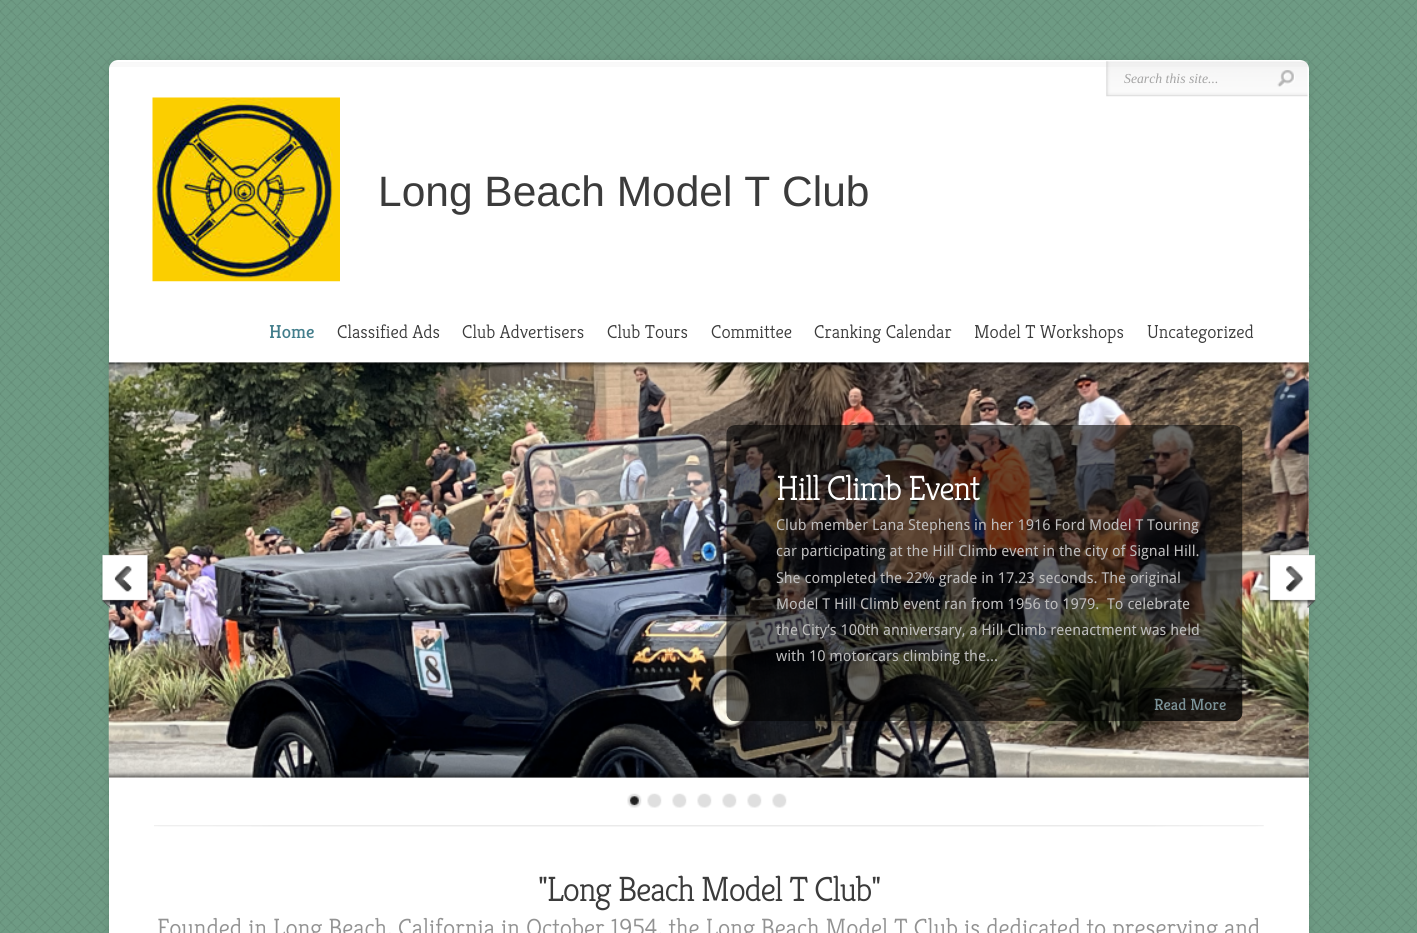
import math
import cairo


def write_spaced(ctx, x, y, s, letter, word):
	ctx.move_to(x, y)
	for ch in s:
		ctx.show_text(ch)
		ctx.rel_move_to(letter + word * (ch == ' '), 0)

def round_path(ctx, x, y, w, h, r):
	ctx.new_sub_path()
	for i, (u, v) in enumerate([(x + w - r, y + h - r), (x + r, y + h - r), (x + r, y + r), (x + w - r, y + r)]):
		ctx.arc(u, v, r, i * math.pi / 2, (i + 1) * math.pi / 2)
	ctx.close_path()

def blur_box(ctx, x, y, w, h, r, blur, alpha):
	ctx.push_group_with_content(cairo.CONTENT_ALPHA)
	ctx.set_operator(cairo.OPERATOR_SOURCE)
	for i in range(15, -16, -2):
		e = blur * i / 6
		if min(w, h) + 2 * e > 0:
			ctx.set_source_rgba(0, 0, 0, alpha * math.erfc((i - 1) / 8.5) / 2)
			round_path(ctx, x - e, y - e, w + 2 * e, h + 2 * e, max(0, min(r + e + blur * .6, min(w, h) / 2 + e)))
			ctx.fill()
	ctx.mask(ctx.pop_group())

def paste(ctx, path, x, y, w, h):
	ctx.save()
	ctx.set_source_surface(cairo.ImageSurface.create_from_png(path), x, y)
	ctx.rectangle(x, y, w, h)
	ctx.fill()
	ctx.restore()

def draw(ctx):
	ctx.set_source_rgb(0.431, 0.608, 0.518)
	ctx.paint()
	paste(ctx, 'media/1.png', 0, 0, 1417, 933)
	ctx.set_source_rgb(0, 0, 0)
	blur_box(ctx, 109, 60, 1200, 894, 9, 4, 0.1)
	ctx.set_source_rgb(1, 1, 1)
	round_path(ctx, 109, 60, 1200, 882, 9)
	ctx.fill()
	paste(ctx, 'media/2.png', 110, 62, 1198, 5)
	paste(ctx, 'media/3.png', 1106, 61, 202, 36)
	ctx.select_font_face('Liberation Serif', cairo.FONT_SLANT_ITALIC)
	ctx.set_font_size(13.75)
	ctx.set_source_rgb(0.639, 0.639, 0.639)
	ctx.move_to(1124, 83)
	ctx.show_text('Search this site...')
	paste(ctx, 'media/4.png', 1277, 70, 18, 17)
	paste(ctx, 'media/5.png', 152, 97, 188, 185)
	ctx.select_font_face('Liberation Sans')
	ctx.set_font_size(42.5)
	ctx.set_source_rgb(0.231, 0.231, 0.231)
	ctx.move_to(378, 206)
	ctx.show_text('Long Beach Model T Club')
	ctx.select_font_face('Kreon')
	ctx.set_font_size(18.75)
	ctx.set_source_rgb(0.259, 0.49, 0.545)
	ctx.move_to(269, 338)
	ctx.show_text('Home')
	ctx.select_font_face('Kreon Light')
	ctx.set_source_rgb(0.231, 0.231, 0.231)
	for x, y, s in [
		(337, 338, 'Classified Ads'),
		(462, 338, 'Club Advertisers'),
		(607, 338, 'Club Tours'),
		(711, 338, 'Committee'),
		(814, 338, 'Cranking Calendar'),
		(974, 338, 'Model T Workshops'),
		(1147, 338, 'Uncategorized'),
	]:
		ctx.move_to(x, y)
		ctx.show_text(s)
	paste(ctx, 'media/6.png', 108, 362, 1201, 416)
	paste(ctx, 'media/7.png', 108, 362, 1201, 6)
	paste(ctx, 'media/8.png', 726, 425, 517, 297)
	ctx.set_font_size(35)
	ctx.set_source_rgb(1, 1, 1)
	write_spaced(ctx, 776, 500, 'Hill Climb Event', -1.25, 0)
	ctx.select_font_face('Droid Sans')
	ctx.set_font_size(15)
	ctx.set_source_rgb(0.745, 0.741, 0.741)
	for x, y, s in [
		(776, 530, 'Club member Lana Stephens in her 1916 Ford Model T Touring'),
		(776, 556, 'car participating at the Hill Climb event in the city of Signal Hill.'),
		(776, 583, 'She completed the 22% grade in 17.23 seconds. The original'),
		(776, 609, 'Model T Hill Climb event ran from 1956 to 1979.  To celebrate'),
		(776, 635, 'the City’s 100th anniversary, a Hill Climb reenactment was held'),
		(776, 661, 'with 10 motorcars climbing the...'),
	]:
		ctx.move_to(x, y)
		ctx.show_text(s)
	paste(ctx, 'media/9.png', 1137, 687, 106, 35)
	ctx.select_font_face('Kreon')
	ctx.set_font_size(16.25)
	ctx.set_source_rgb(0.482, 0.573, 0.592)
	ctx.move_to(1154, 710)
	ctx.show_text('Read More')
	paste(ctx, 'media/10.png', 108, 772, 1201, 6)
	paste(ctx, 'media/11.png', 101, 554, 50, 54)
	paste(ctx, 'media/12.png', 1266, 554, 50, 54)
	paste(ctx, 'media/13.png', 627, 793, 15, 15)
	paste(ctx, 'media/14.png', 647, 793, 15, 15)
	paste(ctx, 'media/14.png', 672, 793, 15, 15)
	paste(ctx, 'media/14.png', 697, 793, 15, 15)
	paste(ctx, 'media/14.png', 722, 793, 15, 15)
	paste(ctx, 'media/14.png', 747, 793, 15, 15)
	paste(ctx, 'media/15.png', 772, 793, 15, 15)
	paste(ctx, 'media/16.png', 154, 825, 1110, 2)
	ctx.select_font_face('Kreon Light')
	ctx.set_font_size(35)
	ctx.set_source_rgb(0.231, 0.231, 0.231)
	write_spaced(ctx, 538, 901, '"Long Beach Model T Club"', -1.25, 0)
	ctx.set_font_size(25)
	ctx.set_source_rgb(0.573, 0.573, 0.573)
	ctx.move_to(157, 936)
	ctx.show_text('Founded in Long Beach, California in October 1954, the Long Beach Model T Club is dedicated to preserving and')


surface = cairo.ImageSurface(cairo.FORMAT_RGB24, 1417, 933)
ctx = cairo.Context(surface)
options = cairo.FontOptions()
options.set_hint_metrics(cairo.HINT_METRICS_OFF)
options.set_hint_style(cairo.HINT_STYLE_NONE)
ctx.set_font_options(options)
ctx.set_miter_limit(4)
draw(ctx)
surface.write_to_png('image.png')
